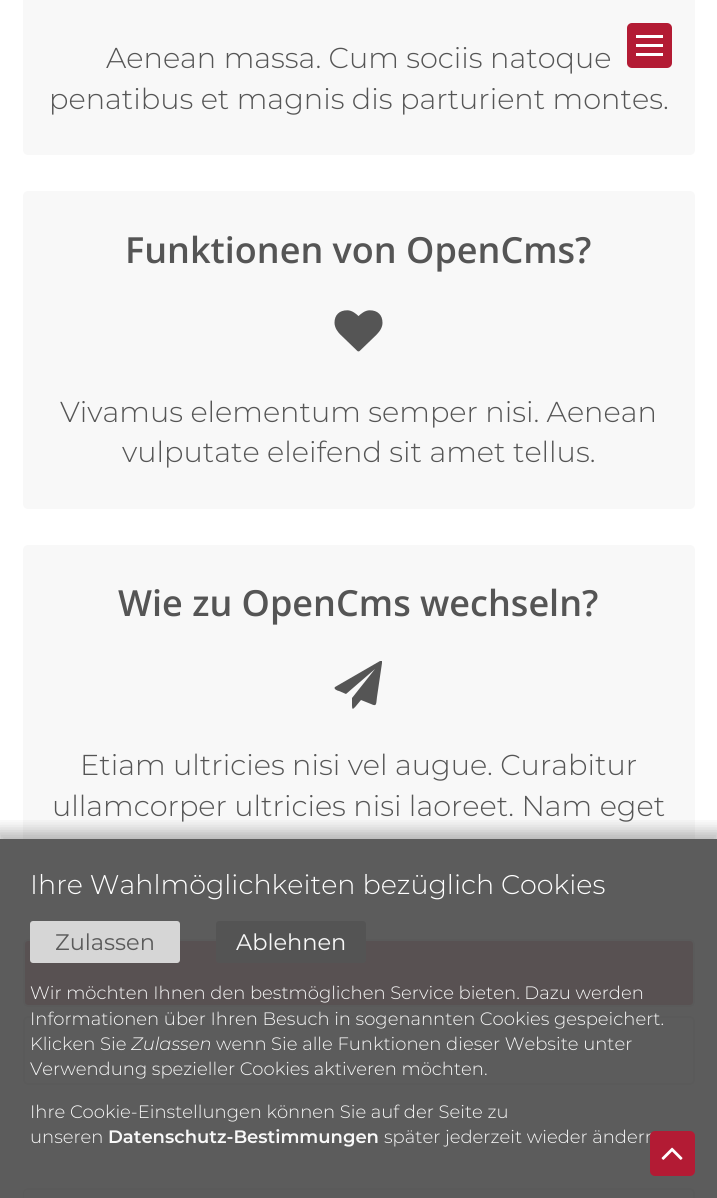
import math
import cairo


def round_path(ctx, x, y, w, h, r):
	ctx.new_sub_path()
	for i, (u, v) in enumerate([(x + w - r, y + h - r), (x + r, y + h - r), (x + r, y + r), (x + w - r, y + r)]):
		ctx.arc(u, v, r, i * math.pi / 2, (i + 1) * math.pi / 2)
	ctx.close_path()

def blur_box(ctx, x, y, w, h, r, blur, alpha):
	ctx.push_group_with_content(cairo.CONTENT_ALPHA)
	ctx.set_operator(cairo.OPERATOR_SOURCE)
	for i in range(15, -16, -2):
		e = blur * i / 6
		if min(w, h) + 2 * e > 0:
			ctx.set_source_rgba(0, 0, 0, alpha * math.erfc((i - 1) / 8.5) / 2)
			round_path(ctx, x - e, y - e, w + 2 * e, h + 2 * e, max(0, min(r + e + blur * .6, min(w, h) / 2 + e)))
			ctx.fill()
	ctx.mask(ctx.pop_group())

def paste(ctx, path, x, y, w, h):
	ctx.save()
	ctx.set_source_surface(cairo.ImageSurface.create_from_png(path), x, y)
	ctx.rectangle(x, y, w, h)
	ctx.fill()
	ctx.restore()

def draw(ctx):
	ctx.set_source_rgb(1, 1, 1)
	ctx.paint()
	ctx.set_source_rgb(0.969, 0.969, 0.969)
	round_path(ctx, 23, -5, 672, 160, 5)
	ctx.fill()
	ctx.set_source_rgb(0.702, 0.106, 0.204)
	round_path(ctx, 627, 23, 45, 45, 5)
	ctx.fill()
	ctx.set_source_rgb(1, 1, 1)
	ctx.rectangle(636, 44, 27, 3)
	ctx.rectangle(636, 35, 27, 3)
	ctx.rectangle(636, 53, 27, 3)
	ctx.fill()
	ctx.select_font_face('Montserrat Light')
	ctx.set_font_size(28.8)
	ctx.set_source_rgb(0.333, 0.333, 0.333)
	ctx.move_to(106, 68)
	ctx.show_text('Aenean massa. Cum sociis natoque')
	ctx.move_to(49, 109)
	ctx.show_text('penatibus et magnis dis parturient montes.')
	ctx.set_source_rgb(0.969, 0.969, 0.969)
	round_path(ctx, 23, 191, 672, 318, 5)
	ctx.fill()
	ctx.select_font_face('Open Sans SemiBold')
	ctx.set_font_size(36)
	ctx.set_source_rgb(0.333, 0.333, 0.333)
	ctx.move_to(125, 263)
	ctx.show_text('Funktionen von OpenCms?')
	paste(ctx, 'media/1.png', 334, 310, 49, 42)
	ctx.select_font_face('Montserrat Light')
	ctx.set_font_size(28.8)
	ctx.move_to(60, 422)
	ctx.show_text('Vivamus elementum semper nisi. Aenean')
	ctx.move_to(122, 462)
	ctx.show_text('vulputate eleifend sit amet tellus.')
	ctx.set_source_rgb(0.969, 0.969, 0.969)
	round_path(ctx, 23, 545, 672, 358, 5)
	ctx.fill()
	ctx.select_font_face('Open Sans SemiBold')
	ctx.set_font_size(36)
	ctx.set_source_rgb(0.333, 0.333, 0.333)
	ctx.move_to(118, 616)
	ctx.show_text('Wie zu OpenCms wechseln?')
	ctx.new_path()
	ctx.move_to(382, 661)
	ctx.line_to(382, 663)
	ctx.line_to(377, 697)
	ctx.curve_to(376, 704, 377, 707, 371, 704)
	ctx.line_to(361, 700)
	ctx.curve_to(351, 712, 352, 712, 352, 698)
	ctx.line_to(375, 669)
	ctx.line_to(346, 694)
	ctx.line_to(339, 691)
	ctx.curve_to(338, 691, 333, 689, 335, 687)
	ctx.line_to(380, 661)
	ctx.close_path()
	ctx.fill()
	ctx.select_font_face('Montserrat Light')
	ctx.set_font_size(28.8)
	ctx.move_to(80, 775)
	ctx.show_text('Etiam ultricies nisi vel augue. Curabitur')
	ctx.move_to(52, 816)
	ctx.show_text('ullamcorper ultricies nisi laoreet. Nam eget')
	ctx.set_source_rgb(0.702, 0.106, 0.204)
	round_path(ctx, 24, 940, 670, 66, 4)
	ctx.fill_preserve()
	ctx.set_source_rgb(0.867, 0.867, 0.867)
	ctx.stroke()
	ctx.set_source_rgb(0.969, 0.969, 0.969)
	round_path(ctx, 24, 1017, 670, 67, 4)
	ctx.fill_preserve()
	ctx.set_source_rgb(0.867, 0.867, 0.867)
	ctx.stroke()
	round_path(ctx, 24, 1189, 670, 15, 4)
	ctx.stroke()
	ctx.set_source_rgb(0.969, 0.969, 0.969)
	ctx.new_path()
	ctx.move_to(27, 1190)
	ctx.line_to(690, 1190)
	ctx.curve_to(691.5, 1190, 693, 1191.5, 693, 1193)
	ctx.line_to(693, 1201)
	ctx.line_to(24, 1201)
	ctx.line_to(24, 1193)
	ctx.curve_to(24, 1191.5, 25.5, 1190, 27, 1190)
	ctx.close_path()
	ctx.fill()
	ctx.save()
	ctx.rectangle(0, 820, 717, 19)
	ctx.clip()
	ctx.set_source_rgb(0, 0, 0)
	blur_box(ctx, -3, 831, 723, 366, 0, 7.5, 0.28)
	ctx.restore()
	ctx.set_source_rgba(0.333, 0.333, 0.333, 0.95)
	ctx.rectangle(0, 839, 717, 359)
	ctx.fill()
	ctx.set_font_size(27)
	ctx.set_source_rgb(1, 1, 1)
	ctx.move_to(30, 894)
	ctx.show_text('Ihre Wahlmöglichkeiten bezüglich Cookies')
	ctx.set_source_rgba(0.867, 0.867, 0.867, 0.95)
	round_path(ctx, 30, 921, 150, 42, 3)
	ctx.fill()
	ctx.select_font_face('Montserrat')
	ctx.set_font_size(22.5)
	ctx.set_source_rgb(0.357, 0.357, 0.357)
	ctx.move_to(55, 950)
	ctx.show_text('Zulassen')
	ctx.set_source_rgba(0.333, 0.333, 0.333, 0.95)
	round_path(ctx, 216, 921, 150, 42, 3)
	ctx.fill()
	ctx.set_source_rgb(0.969, 0.969, 0.969)
	ctx.move_to(236, 950)
	ctx.show_text('Ablehnen')
	ctx.select_font_face('Montserrat Light')
	ctx.set_font_size(18)
	for x, y, s in [
		(30, 999, 'Wir möchten Ihnen den bestmöglichen Service bieten. Dazu werden'),
		(30, 1025, 'Informationen über Ihren Besuch in sogenannten Cookies gespeichert.'),
		(30, 1050, 'Klicken Sie'),
	]:
		ctx.move_to(x, y)
		ctx.show_text(s)
	ctx.select_font_face('Montserrat Light', cairo.FONT_SLANT_ITALIC)
	ctx.move_to(131, 1050)
	ctx.show_text('Zulassen')
	ctx.select_font_face('Montserrat Light')
	for x, y, s in [
		(216, 1050, 'wenn Sie alle Funktionen dieser Website unter'),
		(30, 1075, 'Verwendung spezieller Cookies aktiveren möchten.'),
		(30, 1118, 'Ihre Cookie-Einstellungen können Sie auf der Seite zu'),
		(30, 1143, 'unseren'),
	]:
		ctx.move_to(x, y)
		ctx.show_text(s)
	ctx.select_font_face('Montserrat SemiBold')
	ctx.move_to(108, 1143)
	ctx.show_text('Datenschutz-Bestimmungen')
	ctx.select_font_face('Montserrat Light')
	ctx.move_to(384, 1143)
	ctx.show_text('später jederzeit wieder ändern')
	ctx.set_source_rgb(0.702, 0.106, 0.204)
	round_path(ctx, 650, 1131, 45, 45, 5)
	ctx.fill()
	paste(ctx, 'media/2.png', 661, 1147, 22, 13)


surface = cairo.ImageSurface(cairo.FORMAT_RGB24, 717, 1198)
ctx = cairo.Context(surface)
options = cairo.FontOptions()
options.set_hint_metrics(cairo.HINT_METRICS_OFF)
options.set_hint_style(cairo.HINT_STYLE_NONE)
ctx.set_font_options(options)
ctx.set_miter_limit(4)
draw(ctx)
surface.write_to_png('image.png')
